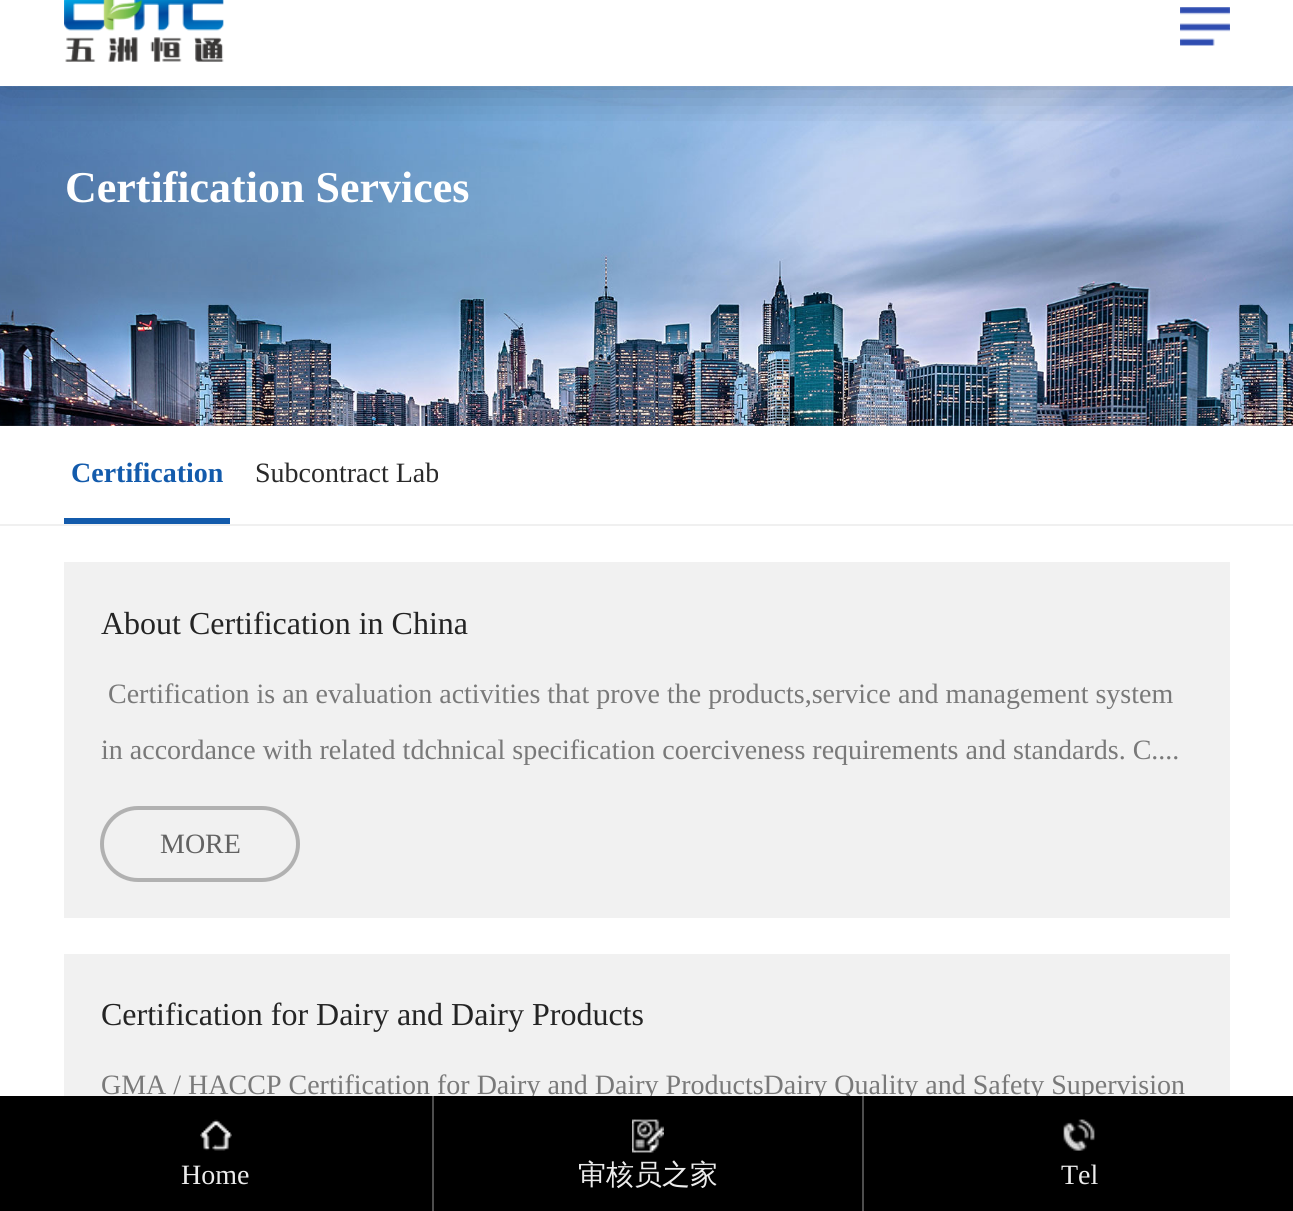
import math
import cairo


def round_path(ctx, x, y, w, h, r):
	ctx.new_sub_path()
	for i, (u, v) in enumerate([(x + w - r, y + h - r), (x + r, y + h - r), (x + r, y + r), (x + w - r, y + r)]):
		ctx.arc(u, v, r, i * math.pi / 2, (i + 1) * math.pi / 2)
	ctx.close_path()

def blur_box(ctx, x, y, w, h, r, blur, alpha):
	ctx.push_group_with_content(cairo.CONTENT_ALPHA)
	ctx.set_operator(cairo.OPERATOR_SOURCE)
	for i in range(15, -16, -2):
		e = blur * i / 6
		if min(w, h) + 2 * e > 0:
			ctx.set_source_rgba(0, 0, 0, alpha * math.erfc((i - 1) / 8.5) / 2)
			round_path(ctx, x - e, y - e, w + 2 * e, h + 2 * e, max(0, min(r + e + blur * .6, min(w, h) / 2 + e)))
			ctx.fill()
	ctx.mask(ctx.pop_group())

def paste(ctx, path, x, y, w, h):
	ctx.save()
	ctx.set_source_surface(cairo.ImageSurface.create_from_png(path), x, y)
	ctx.rectangle(x, y, w, h)
	ctx.fill()
	ctx.restore()

def draw(ctx):
	ctx.set_source_rgb(1, 1, 1)
	ctx.paint()
	paste(ctx, 'media/3.png', 0, 86, 1293, 340)
	ctx.save()
	ctx.rectangle(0, 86, 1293, 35)
	ctx.clip()
	ctx.set_source_rgb(0, 0, 0)
	blur_box(ctx, 0, -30, 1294, 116, 0, 24, 0.28)
	ctx.restore()
	paste(ctx, 'media/1.png', 64, 0, 160, 62)
	paste(ctx, 'media/2.png', 1180, 7, 50, 39)
	ctx.select_font_face('Liberation Serif', cairo.FONT_SLANT_NORMAL, cairo.FONT_WEIGHT_BOLD)
	ctx.set_font_size(44)
	ctx.set_source_rgb(1, 1, 1)
	ctx.move_to(65, 202)
	ctx.show_text('Certification Services')
	ctx.set_font_size(28)
	ctx.set_source_rgb(0.078, 0.357, 0.675)
	ctx.move_to(71, 482)
	ctx.show_text('Certification')
	ctx.rectangle(64, 518, 166, 6)
	ctx.fill()
	ctx.select_font_face('Liberation Serif')
	ctx.set_source_rgb(0.165, 0.165, 0.165)
	ctx.move_to(255, 482)
	ctx.show_text('Subcontract Lab')
	ctx.set_source_rgb(0.941, 0.941, 0.941)
	ctx.rectangle(0, 524, 1293, 2)
	ctx.fill()
	ctx.set_source_rgb(0.945, 0.945, 0.945)
	ctx.rectangle(64, 562, 1166, 356)
	ctx.fill()
	ctx.set_font_size(32)
	ctx.set_source_rgb(0.141, 0.141, 0.141)
	ctx.move_to(101, 634)
	ctx.show_text('About Certification in China')
	ctx.set_font_size(28)
	ctx.set_source_rgb(0.475, 0.475, 0.475)
	ctx.move_to(108, 703)
	ctx.show_text('Certification is an evaluation activities that prove the products,service and management system')
	ctx.move_to(101, 759)
	ctx.show_text('in accordance with related tdchnical specification coerciveness requirements and standards. C....')
	round_path(ctx, 102, 808, 196, 72, 36)
	ctx.set_source_rgb(0.694, 0.694, 0.694)
	ctx.set_line_width(4)
	ctx.stroke()
	ctx.set_source_rgb(0.384, 0.384, 0.384)
	ctx.move_to(160, 853)
	ctx.show_text('MORE')
	ctx.set_source_rgb(0.945, 0.945, 0.945)
	ctx.rectangle(64, 954, 1166, 142)
	ctx.fill()
	ctx.set_font_size(32)
	ctx.set_source_rgb(0.141, 0.141, 0.141)
	ctx.move_to(101, 1025)
	ctx.show_text('Certification for Dairy and Dairy Products')
	ctx.set_font_size(28)
	ctx.set_source_rgb(0.475, 0.475, 0.475)
	ctx.move_to(101, 1094)
	ctx.show_text('GMA / HACCP Certification for Dairy and Dairy ProductsDairy Quality and Safety Supervision')
	ctx.set_source_rgb(0, 0, 0)
	ctx.rectangle(0, 1096, 1293, 115)
	ctx.fill()
	paste(ctx, 'media/4.png', 200, 1119, 32, 32)
	ctx.set_source_rgb(0.925, 0.925, 0.925)
	ctx.move_to(181, 1184)
	ctx.show_text('Home')
	ctx.set_source_rgb(0.302, 0.302, 0.302)
	ctx.rectangle(432, 1096, 2, 115)
	ctx.fill()
	paste(ctx, 'media/5.png', 632, 1119, 32, 34)
	ctx.select_font_face('WenQuanYi Zen Hei Medium')
	ctx.set_source_rgb(0.925, 0.925, 0.925)
	ctx.move_to(578, 1184)
	ctx.show_text('审核员之家')
	ctx.set_source_rgb(0.302, 0.302, 0.302)
	ctx.rectangle(862, 1096, 2, 115)
	ctx.fill()
	paste(ctx, 'media/6.png', 1063, 1119, 32, 32)
	ctx.select_font_face('Liberation Serif')
	ctx.set_source_rgb(0.925, 0.925, 0.925)
	ctx.move_to(1061, 1184)
	ctx.show_text('Tel')


surface = cairo.ImageSurface(cairo.FORMAT_RGB24, 1293, 1211)
ctx = cairo.Context(surface)
options = cairo.FontOptions()
options.set_hint_metrics(cairo.HINT_METRICS_OFF)
options.set_hint_style(cairo.HINT_STYLE_NONE)
ctx.set_font_options(options)
ctx.set_miter_limit(4)
draw(ctx)
surface.write_to_png('image.png')
